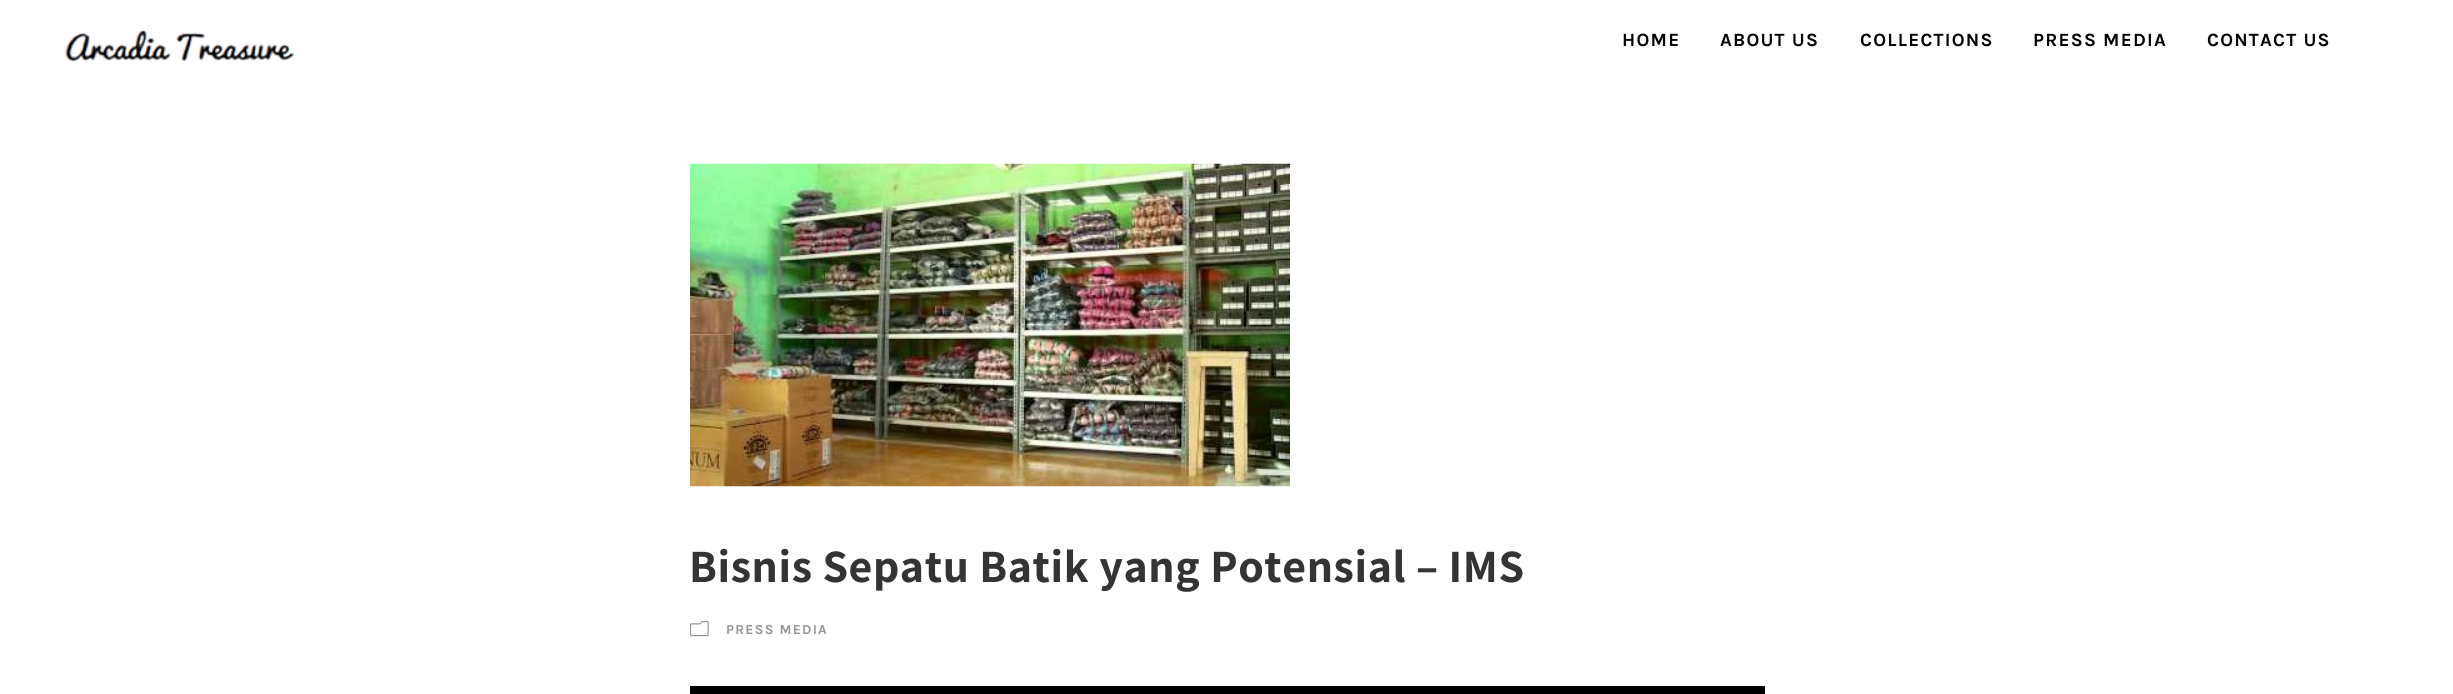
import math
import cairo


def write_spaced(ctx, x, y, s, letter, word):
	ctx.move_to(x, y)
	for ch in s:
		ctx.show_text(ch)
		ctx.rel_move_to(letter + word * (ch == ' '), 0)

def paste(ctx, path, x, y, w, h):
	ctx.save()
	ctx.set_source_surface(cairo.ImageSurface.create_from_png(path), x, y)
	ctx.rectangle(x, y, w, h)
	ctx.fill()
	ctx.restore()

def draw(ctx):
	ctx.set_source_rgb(1, 1, 1)
	ctx.paint()
	paste(ctx, 'media/1.png', 65, 30, 229, 32)
	ctx.select_font_face('Karla', cairo.FONT_SLANT_NORMAL, cairo.FONT_WEIGHT_BOLD)
	ctx.set_font_size(18.75)
	ctx.set_source_rgb(0, 0, 0)
	for x, y, s in [
		(1622, 46, 'HOME'),
		(1720, 46, 'ABOUT US'),
		(1860, 46, 'COLLECTIONS'),
		(2033, 46, 'PRESS MEDIA'),
		(2207, 46, 'CONTACT US'),
	]:
		write_spaced(ctx, x, y, s, 1.25, 0)
	paste(ctx, 'media/2.png', 690, 163, 600, 324)
	ctx.select_font_face('Assistant', cairo.FONT_SLANT_NORMAL, cairo.FONT_WEIGHT_BOLD)
	ctx.set_font_size(46.25)
	ctx.set_source_rgb(0.204, 0.204, 0.204)
	write_spaced(ctx, 689, 582, 'Bisnis Sepatu Batik yang Potensial – IMS', 0.6, 0)
	paste(ctx, 'media/3.png', 690, 620, 19, 17)
	ctx.select_font_face('Karla', cairo.FONT_SLANT_NORMAL, cairo.FONT_WEIGHT_BOLD)
	ctx.set_font_size(13.75)
	ctx.set_source_rgb(0.584, 0.584, 0.584)
	write_spaced(ctx, 726, 634, 'PRESS MEDIA', 1.25, 0)
	ctx.set_source_rgb(0, 0, 0)
	ctx.rectangle(690, 686, 1075, 8)
	ctx.fill()


surface = cairo.ImageSurface(cairo.FORMAT_RGB24, 2453, 694)
ctx = cairo.Context(surface)
options = cairo.FontOptions()
options.set_hint_metrics(cairo.HINT_METRICS_OFF)
options.set_hint_style(cairo.HINT_STYLE_NONE)
ctx.set_font_options(options)
ctx.set_miter_limit(4)
draw(ctx)
surface.write_to_png('image.png')
